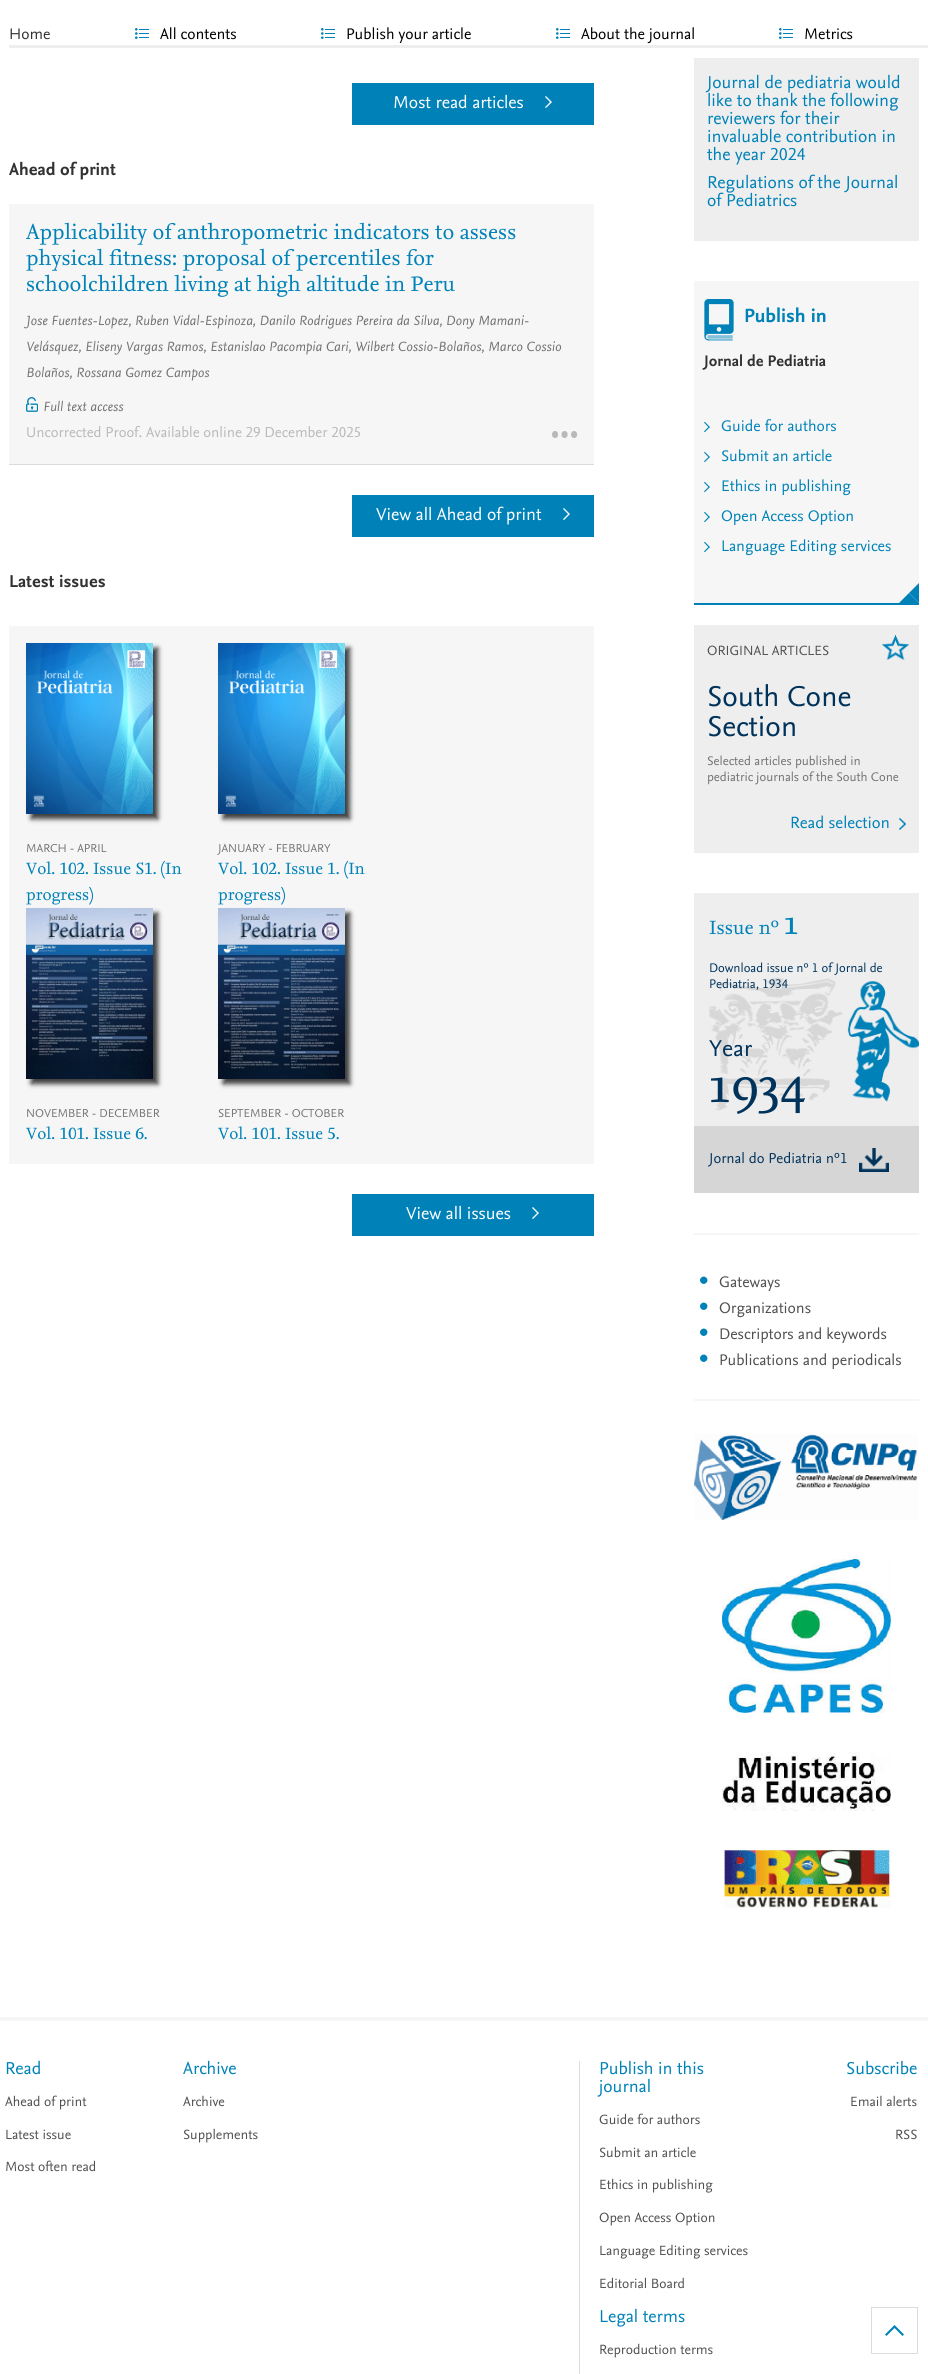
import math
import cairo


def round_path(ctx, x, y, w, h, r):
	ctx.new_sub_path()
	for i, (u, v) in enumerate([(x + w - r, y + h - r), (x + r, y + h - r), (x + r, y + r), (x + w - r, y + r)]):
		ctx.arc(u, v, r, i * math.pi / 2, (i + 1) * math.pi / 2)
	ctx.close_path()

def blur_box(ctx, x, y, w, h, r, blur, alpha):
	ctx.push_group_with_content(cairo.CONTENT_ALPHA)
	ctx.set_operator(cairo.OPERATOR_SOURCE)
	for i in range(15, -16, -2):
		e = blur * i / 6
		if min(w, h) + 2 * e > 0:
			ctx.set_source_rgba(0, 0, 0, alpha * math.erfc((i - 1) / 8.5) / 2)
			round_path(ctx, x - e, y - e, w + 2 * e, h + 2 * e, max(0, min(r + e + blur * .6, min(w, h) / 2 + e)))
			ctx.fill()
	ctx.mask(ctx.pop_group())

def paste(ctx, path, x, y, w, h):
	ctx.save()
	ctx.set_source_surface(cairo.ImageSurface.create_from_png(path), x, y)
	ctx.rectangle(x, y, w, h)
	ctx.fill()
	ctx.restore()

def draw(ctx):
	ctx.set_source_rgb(1, 1, 1)
	ctx.paint()
	ctx.set_source_rgb(0.933, 0.933, 0.933)
	ctx.rectangle(9, 45, 919, 3)
	ctx.fill()
	ctx.select_font_face('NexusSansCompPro')
	ctx.set_font_size(16)
	ctx.set_source_rgb(0.196, 0.196, 0.196)
	ctx.move_to(9, 39)
	ctx.show_text('Home')
	paste(ctx, 'media/1.png', 135, 28, 14, 11)
	ctx.set_source_rgb(0, 0, 0)
	ctx.move_to(160, 39)
	ctx.show_text('All contents')
	paste(ctx, 'media/1.png', 321, 28, 14, 11)
	ctx.move_to(346, 39)
	ctx.show_text('Publish your article')
	paste(ctx, 'media/1.png', 556, 28, 14, 11)
	ctx.move_to(581, 39)
	ctx.show_text('About the journal')
	paste(ctx, 'media/1.png', 779, 28, 14, 11)
	ctx.move_to(804, 39)
	ctx.show_text('Metrics')
	ctx.set_source_rgb(0, 0.51, 0.722)
	ctx.rectangle(352, 83, 242, 42)
	ctx.fill()
	ctx.set_font_size(18)
	ctx.set_source_rgb(1, 1, 1)
	ctx.move_to(393, 108)
	ctx.show_text('Most read articles')
	paste(ctx, 'media/2.png', 545, 96, 7, 12)
	ctx.select_font_face('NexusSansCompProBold', cairo.FONT_SLANT_NORMAL, cairo.FONT_WEIGHT_BOLD)
	ctx.set_source_rgb(0.196, 0.196, 0.196)
	ctx.move_to(9, 175)
	ctx.show_text('Ahead of print')
	ctx.set_source_rgb(0.961, 0.961, 0.961)
	ctx.rectangle(9, 204, 585, 260)
	ctx.fill()
	ctx.set_source_rgb(0.863, 0.863, 0.863)
	ctx.rectangle(9, 464, 585, 1)
	ctx.fill()
	ctx.select_font_face('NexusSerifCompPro')
	ctx.set_font_size(22)
	ctx.set_source_rgb(0, 0.51, 0.722)
	for x, y, s in [
		(26, 239, 'Applicability of anthropometric indicators to assess'),
		(26, 265, 'physical fitness: proposal of percentiles for'),
		(26, 291, 'schoolchildren living at high altitude in Peru'),
	]:
		ctx.move_to(x, y)
		ctx.show_text(s)
	ctx.select_font_face('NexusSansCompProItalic', cairo.FONT_SLANT_ITALIC)
	ctx.set_font_size(14)
	ctx.set_source_rgb(0.451, 0.451, 0.451)
	for x, y, s in [
		(26, 325, 'Jose Fuentes-Lopez, Ruben Vidal-Espinoza, Danilo Rodrigues Pereira da Silva, Dony Mamani-'),
		(26, 351, 'Velásquez, Eliseny Vargas Ramos, Estanislao Pacompia Cari, Wilbert Cossio-Bolaños, Marco Cossio'),
		(26, 377, 'Bolaños, Rossana Gomez Campos'),
	]:
		ctx.move_to(x, y)
		ctx.show_text(s)
	paste(ctx, 'media/3.png', 26, 397, 12, 15)
	ctx.move_to(43, 411)
	ctx.show_text('Full text access')
	ctx.select_font_face('NexusSansCompPro')
	ctx.set_font_size(15)
	ctx.set_source_rgb(0.725, 0.725, 0.725)
	ctx.move_to(26, 437)
	ctx.show_text('Uncorrected Proof. Available online 29 December 2025')
	paste(ctx, 'media/4.png', 552, 431, 25, 7)
	ctx.set_source_rgb(0, 0.51, 0.722)
	ctx.rectangle(352, 495, 242, 42)
	ctx.fill()
	ctx.set_font_size(18)
	ctx.set_source_rgb(1, 1, 1)
	ctx.move_to(376, 520)
	ctx.show_text('View all Ahead of print')
	paste(ctx, 'media/2.png', 563, 508, 7, 12)
	ctx.select_font_face('NexusSansCompProBold', cairo.FONT_SLANT_NORMAL, cairo.FONT_WEIGHT_BOLD)
	ctx.set_source_rgb(0.196, 0.196, 0.196)
	ctx.move_to(9, 587)
	ctx.show_text('Latest issues')
	ctx.set_source_rgb(0.961, 0.961, 0.961)
	ctx.rectangle(9, 626, 585, 538)
	ctx.fill()
	ctx.set_source_rgb(0, 0, 0)
	blur_box(ctx, 31, 648, 127, 171, 0, 2.5, 0.75)
	paste(ctx, 'media/5.png', 26, 643, 127, 171)
	ctx.select_font_face('NexusSansCompPro')
	ctx.set_font_size(12)
	ctx.set_source_rgb(0.451, 0.451, 0.451)
	ctx.move_to(26, 852)
	ctx.show_text('MARCH - APRIL')
	ctx.select_font_face('NexusSerifCompPro')
	ctx.set_font_size(17)
	ctx.set_source_rgb(0, 0.51, 0.722)
	ctx.move_to(26, 874)
	ctx.show_text('Vol. 102. Issue S1. (In')
	ctx.move_to(26, 900)
	ctx.show_text('progress)')
	ctx.set_source_rgb(0, 0, 0)
	blur_box(ctx, 223, 648, 127, 171, 0, 2.5, 0.75)
	paste(ctx, 'media/5.png', 218, 643, 127, 171)
	ctx.select_font_face('NexusSansCompPro')
	ctx.set_font_size(12)
	ctx.set_source_rgb(0.451, 0.451, 0.451)
	ctx.move_to(218, 852)
	ctx.show_text('JANUARY - FEBRUARY')
	ctx.select_font_face('NexusSerifCompPro')
	ctx.set_font_size(17)
	ctx.set_source_rgb(0, 0.51, 0.722)
	ctx.move_to(218, 874)
	ctx.show_text('Vol. 102. Issue 1. (In')
	ctx.move_to(218, 900)
	ctx.show_text('progress)')
	ctx.set_source_rgb(0, 0, 0)
	blur_box(ctx, 31, 913, 127, 171, 0, 2.5, 0.75)
	paste(ctx, 'media/6.png', 26, 908, 127, 171)
	ctx.select_font_face('NexusSansCompPro')
	ctx.set_font_size(12)
	ctx.set_source_rgb(0.451, 0.451, 0.451)
	ctx.move_to(26, 1117)
	ctx.show_text('NOVEMBER - DECEMBER')
	ctx.select_font_face('NexusSerifCompPro')
	ctx.set_font_size(17)
	ctx.set_source_rgb(0, 0.51, 0.722)
	ctx.move_to(26, 1139)
	ctx.show_text('Vol. 101. Issue 6.')
	ctx.set_source_rgb(0, 0, 0)
	blur_box(ctx, 223, 913, 127, 171, 0, 2.5, 0.75)
	paste(ctx, 'media/7.png', 218, 908, 127, 171)
	ctx.select_font_face('NexusSansCompPro')
	ctx.set_font_size(12)
	ctx.set_source_rgb(0.451, 0.451, 0.451)
	ctx.move_to(218, 1117)
	ctx.show_text('SEPTEMBER - OCTOBER')
	ctx.select_font_face('NexusSerifCompPro')
	ctx.set_font_size(17)
	ctx.set_source_rgb(0, 0.51, 0.722)
	ctx.move_to(218, 1139)
	ctx.show_text('Vol. 101. Issue 5.')
	ctx.rectangle(352, 1194, 242, 42)
	ctx.fill()
	ctx.select_font_face('NexusSansCompPro')
	ctx.set_font_size(18)
	ctx.set_source_rgb(1, 1, 1)
	ctx.move_to(406, 1219)
	ctx.show_text('View all issues')
	paste(ctx, 'media/2.png', 532, 1207, 7, 12)
	ctx.set_source_rgb(0.933, 0.933, 0.933)
	ctx.rectangle(694, 58, 225, 183)
	ctx.fill()
	ctx.set_source_rgb(0, 0.51, 0.722)
	for x, y, s in [
		(707, 88, 'Journal de pediatria would'),
		(707, 106, 'like to thank the following'),
		(707, 124, 'reviewers for their'),
		(707, 142, 'invaluable contribution in'),
		(707, 160, 'the year 2024'),
		(707, 188, 'Regulations of the Journal'),
		(707, 206, 'of Pediatrics'),
	]:
		ctx.move_to(x, y)
		ctx.show_text(s)
	ctx.set_source_rgb(0.961, 0.961, 0.961)
	ctx.rectangle(694, 281, 225, 322)
	ctx.fill()
	ctx.set_source_rgb(0, 0.51, 0.722)
	ctx.rectangle(694, 603, 225, 2)
	ctx.fill()
	paste(ctx, 'media/8.png', 704, 299, 30, 42)
	ctx.select_font_face('NexusSansCompProBold', cairo.FONT_SLANT_NORMAL, cairo.FONT_WEIGHT_BOLD)
	ctx.set_font_size(20)
	ctx.move_to(744, 322)
	ctx.show_text('Publish in')
	ctx.set_font_size(16)
	ctx.set_source_rgb(0.196, 0.196, 0.196)
	ctx.move_to(704, 366)
	ctx.show_text('Jornal de Pediatria')
	paste(ctx, 'media/9.png', 704, 421, 6, 12)
	ctx.select_font_face('NexusSansCompPro')
	ctx.set_source_rgb(0, 0.51, 0.722)
	ctx.move_to(721, 431)
	ctx.show_text('Guide for authors')
	paste(ctx, 'media/9.png', 704, 451, 6, 12)
	ctx.move_to(721, 461)
	ctx.show_text('Submit an article')
	paste(ctx, 'media/9.png', 704, 481, 6, 12)
	ctx.move_to(721, 491)
	ctx.show_text('Ethics in publishing')
	paste(ctx, 'media/9.png', 704, 511, 6, 12)
	ctx.move_to(721, 521)
	ctx.show_text('Open Access Option')
	paste(ctx, 'media/9.png', 704, 541, 6, 12)
	ctx.move_to(721, 551)
	ctx.show_text('Language Editing services')
	ctx.new_path()
	ctx.move_to(919, 583)
	ctx.line_to(919, 603)
	ctx.line_to(909, 593)
	ctx.close_path()
	ctx.fill()
	ctx.new_path()
	ctx.move_to(919, 603)
	ctx.line_to(899, 603)
	ctx.line_to(909, 593)
	ctx.close_path()
	ctx.fill()
	ctx.set_source_rgb(0.933, 0.933, 0.933)
	ctx.rectangle(694, 625, 225, 228)
	ctx.fill()
	paste(ctx, 'media/10.png', 882, 635, 27, 25)
	ctx.set_font_size(14)
	ctx.set_source_rgb(0.314, 0.314, 0.314)
	ctx.move_to(707, 655)
	ctx.show_text('ORIGINAL ARTICLES')
	ctx.set_font_size(30)
	ctx.set_source_rgb(0, 0.2, 0.361)
	ctx.move_to(707, 706)
	ctx.show_text('South Cone')
	ctx.move_to(707, 736)
	ctx.show_text('Section')
	ctx.set_font_size(13)
	ctx.set_source_rgb(0.451, 0.451, 0.451)
	ctx.move_to(707, 765)
	ctx.show_text('Selected articles published in')
	ctx.move_to(707, 781)
	ctx.show_text('pediatric journals of the South Cone')
	ctx.set_font_size(17)
	ctx.set_source_rgb(0, 0.51, 0.722)
	ctx.move_to(790, 828)
	ctx.show_text('Read selection')
	paste(ctx, 'media/11.png', 899, 818, 7, 12)
	paste(ctx, 'media/12.png', 694, 893, 225, 233)
	ctx.select_font_face('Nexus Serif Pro')
	ctx.set_font_size(20)
	ctx.move_to(709, 934)
	ctx.show_text('Issue nº')
	ctx.set_font_size(36)
	ctx.move_to(784, 934)
	ctx.show_text('1')
	ctx.select_font_face('NexusSansCompPro')
	ctx.set_font_size(13)
	ctx.set_source_rgb(0, 0.2, 0.361)
	ctx.move_to(709, 972)
	ctx.show_text('Download issue nº 1 of Jornal de')
	ctx.move_to(709, 988)
	ctx.show_text('Pediatria, 1934')
	ctx.set_font_size(24)
	ctx.move_to(709, 1056)
	ctx.show_text('Year')
	ctx.select_font_face('Nexus Serif Pro')
	ctx.set_font_size(54)
	ctx.move_to(709, 1102)
	ctx.show_text('1934')
	ctx.set_source_rgb(0.839, 0.839, 0.839)
	ctx.rectangle(694, 1126, 225, 67)
	ctx.fill()
	paste(ctx, 'media/13.png', 859, 1148, 30, 24)
	ctx.select_font_face('NexusSansCompPro')
	ctx.set_font_size(15)
	ctx.set_source_rgb(0, 0.2, 0.361)
	ctx.move_to(709, 1163)
	ctx.show_text('Jornal do Pediatria nº1')
	ctx.set_source_rgb(0.961, 0.961, 0.961)
	ctx.rectangle(694, 1233, 225, 2)
	ctx.fill()
	ctx.rectangle(694, 1399, 225, 2)
	ctx.fill()
	ctx.set_font_size(30)
	ctx.set_source_rgb(0, 0.51, 0.722)
	ctx.move_to(699, 1287)
	ctx.show_text('•')
	ctx.set_font_size(16)
	ctx.set_source_rgb(0.314, 0.314, 0.314)
	ctx.move_to(719, 1287)
	ctx.show_text('Gateways')
	ctx.set_font_size(30)
	ctx.set_source_rgb(0, 0.51, 0.722)
	ctx.move_to(699, 1313)
	ctx.show_text('•')
	ctx.set_font_size(16)
	ctx.set_source_rgb(0.314, 0.314, 0.314)
	ctx.move_to(719, 1313)
	ctx.show_text('Organizations')
	ctx.set_font_size(30)
	ctx.set_source_rgb(0, 0.51, 0.722)
	ctx.move_to(699, 1339)
	ctx.show_text('•')
	ctx.set_font_size(16)
	ctx.set_source_rgb(0.314, 0.314, 0.314)
	ctx.move_to(719, 1339)
	ctx.show_text('Descriptors and keywords')
	ctx.set_font_size(30)
	ctx.set_source_rgb(0, 0.51, 0.722)
	ctx.move_to(699, 1365)
	ctx.show_text('•')
	ctx.set_font_size(16)
	ctx.set_source_rgb(0.314, 0.314, 0.314)
	ctx.move_to(719, 1365)
	ctx.show_text('Publications and periodicals')
	paste(ctx, 'media/14.png', 694, 1434, 224, 86)
	paste(ctx, 'media/15.png', 722, 1559, 169, 154)
	paste(ctx, 'media/16.png', 722, 1752, 169, 59)
	paste(ctx, 'media/17.png', 724, 1850, 167, 58)
	ctx.set_source_rgb(0, 0.51, 0.722)
	ctx.new_path()
	ctx.move_to(904, 2334.5)
	ctx.line_to(902.5, 2336)
	ctx.line_to(894.5, 2328)
	ctx.line_to(886.5, 2336)
	ctx.line_to(885, 2334.5)
	ctx.line_to(894.5, 2325)
	ctx.close_path()
	ctx.fill()
	ctx.rectangle(871.5, 2307.5, 46, 46)
	ctx.set_source_rgb(0.863, 0.863, 0.863)
	ctx.set_line_width(1)
	ctx.stroke()
	ctx.set_source_rgb(0.961, 0.961, 0.961)
	ctx.rectangle(0, 2017, 928, 4)
	ctx.fill()
	ctx.set_font_size(18)
	ctx.set_source_rgb(0, 0.51, 0.722)
	ctx.move_to(5, 2074)
	ctx.show_text('Read')
	ctx.set_font_size(14)
	ctx.set_source_rgb(0.314, 0.314, 0.314)
	for x, y, s in [
		(5, 2106, 'Ahead of print'),
		(5, 2139, 'Latest issue'),
		(5, 2171, 'Most often read'),
	]:
		ctx.move_to(x, y)
		ctx.show_text(s)
	ctx.set_font_size(18)
	ctx.set_source_rgb(0, 0.51, 0.722)
	ctx.move_to(183, 2074)
	ctx.show_text('Archive')
	ctx.set_font_size(14)
	ctx.set_source_rgb(0.314, 0.314, 0.314)
	ctx.move_to(183, 2106)
	ctx.show_text('Archive')
	ctx.move_to(183, 2139)
	ctx.show_text('Supplements')
	ctx.set_source_rgb(0.863, 0.863, 0.863)
	ctx.rectangle(579, 2061, 1, 313)
	ctx.fill()
	ctx.set_font_size(18)
	ctx.set_source_rgb(0, 0.51, 0.722)
	ctx.move_to(599, 2074)
	ctx.show_text('Publish in this')
	ctx.move_to(599, 2092)
	ctx.show_text('journal')
	ctx.set_font_size(14)
	ctx.set_source_rgb(0.314, 0.314, 0.314)
	for x, y, s in [
		(599, 2124, 'Guide for authors'),
		(599, 2157, 'Submit an article'),
		(599, 2189, 'Ethics in publishing'),
		(599, 2222, 'Open Access Option'),
		(599, 2255, 'Language Editing services'),
		(599, 2288, 'Editorial Board'),
	]:
		ctx.move_to(x, y)
		ctx.show_text(s)
	ctx.set_font_size(18)
	ctx.set_source_rgb(0, 0.51, 0.722)
	ctx.move_to(599, 2322)
	ctx.show_text('Legal terms')
	ctx.set_font_size(14)
	ctx.set_source_rgb(0.314, 0.314, 0.314)
	ctx.move_to(599, 2354)
	ctx.show_text('Reproduction terms')
	ctx.set_font_size(18)
	ctx.set_source_rgb(0, 0.51, 0.722)
	ctx.move_to(846, 2074)
	ctx.show_text('Subscribe')
	ctx.set_font_size(14)
	ctx.set_source_rgb(0.314, 0.314, 0.314)
	ctx.move_to(850, 2106)
	ctx.show_text('Email alerts')
	ctx.move_to(895, 2139)
	ctx.show_text('RSS')


surface = cairo.ImageSurface(cairo.FORMAT_RGB24, 928, 2374)
ctx = cairo.Context(surface)
options = cairo.FontOptions()
options.set_hint_metrics(cairo.HINT_METRICS_OFF)
options.set_hint_style(cairo.HINT_STYLE_NONE)
ctx.set_font_options(options)
ctx.set_miter_limit(4)
draw(ctx)
surface.write_to_png('image.png')
